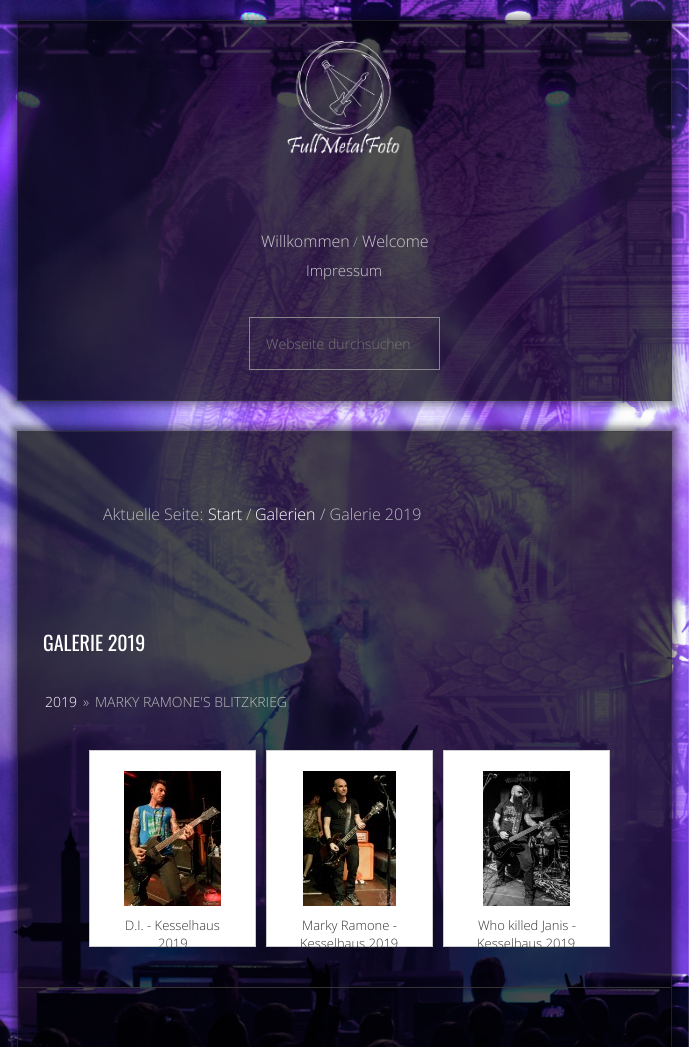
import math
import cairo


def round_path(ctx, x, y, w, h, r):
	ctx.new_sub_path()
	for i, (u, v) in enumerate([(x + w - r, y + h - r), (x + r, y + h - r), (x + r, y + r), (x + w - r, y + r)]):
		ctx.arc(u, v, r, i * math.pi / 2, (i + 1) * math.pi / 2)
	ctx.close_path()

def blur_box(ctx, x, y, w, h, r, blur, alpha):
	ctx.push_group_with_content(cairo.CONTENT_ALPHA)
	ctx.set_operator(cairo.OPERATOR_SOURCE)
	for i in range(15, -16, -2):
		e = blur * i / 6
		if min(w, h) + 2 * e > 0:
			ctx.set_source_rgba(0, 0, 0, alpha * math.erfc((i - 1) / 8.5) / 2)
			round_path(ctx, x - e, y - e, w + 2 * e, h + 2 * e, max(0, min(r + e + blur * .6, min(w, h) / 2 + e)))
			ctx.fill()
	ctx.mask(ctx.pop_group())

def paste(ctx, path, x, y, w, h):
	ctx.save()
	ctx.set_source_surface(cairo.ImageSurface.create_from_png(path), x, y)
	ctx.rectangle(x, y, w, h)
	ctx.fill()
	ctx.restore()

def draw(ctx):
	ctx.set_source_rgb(1, 1, 1)
	ctx.paint()
	paste(ctx, 'media/1.png', 0, 0, 689, 1047)
	ctx.save()
	ctx.set_fill_rule(cairo.FILL_RULE_EVEN_ODD)
	ctx.new_path()
	ctx.move_to(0, 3)
	ctx.line_to(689, 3)
	ctx.line_to(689, 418)
	ctx.line_to(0, 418)
	ctx.close_path()
	ctx.move_to(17, 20)
	ctx.line_to(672, 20)
	ctx.line_to(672, 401)
	ctx.line_to(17, 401)
	ctx.close_path()
	ctx.clip()
	ctx.set_source_rgb(0, 0, 0)
	blur_box(ctx, 13, 16, 663, 389, 0, 4, 0.4)
	ctx.restore()
	ctx.set_source_rgba(0, 0, 0, 0.7)
	ctx.rectangle(17, 20, 655, 381)
	ctx.fill()
	ctx.rectangle(17.5, 20.5, 654, 380)
	ctx.set_source_rgba(0.235, 0.235, 0.235, 0.5)
	ctx.set_line_width(1)
	ctx.stroke()
	paste(ctx, 'media/2.png', 287, 41, 113, 113)
	ctx.select_font_face('Open Sans Light')
	ctx.set_font_size(16)
	ctx.set_source_rgb(0.8, 0.8, 0.8)
	ctx.move_to(261, 247)
	ctx.show_text('Willkommen')
	ctx.set_font_size(14)
	ctx.set_source_rgb(0.6, 0.6, 0.6)
	ctx.move_to(353, 247)
	ctx.show_text('/')
	ctx.set_font_size(16)
	ctx.set_source_rgb(0.8, 0.8, 0.8)
	ctx.move_to(362, 247)
	ctx.show_text('Welcome')
	ctx.set_font_size(15)
	ctx.move_to(306, 276)
	ctx.show_text('Impressum')
	ctx.rectangle(249.5, 317.5, 190, 52)
	ctx.set_source_rgb(0.533, 0.533, 0.533)
	ctx.stroke()
	ctx.set_font_size(14)
	ctx.set_source_rgb(0.459, 0.459, 0.459)
	ctx.move_to(266, 349)
	ctx.show_text('Webseite durchsuchen')
	ctx.save()
	ctx.set_fill_rule(cairo.FILL_RULE_EVEN_ODD)
	ctx.new_path()
	ctx.move_to(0, 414)
	ctx.line_to(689, 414)
	ctx.line_to(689, 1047)
	ctx.line_to(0, 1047)
	ctx.close_path()
	ctx.move_to(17, 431)
	ctx.line_to(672, 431)
	ctx.line_to(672, 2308)
	ctx.line_to(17, 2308)
	ctx.close_path()
	ctx.clip()
	ctx.set_source_rgb(0, 0, 0)
	blur_box(ctx, 13, 427, 663, 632, 0, 4, 0.5)
	ctx.restore()
	ctx.set_source_rgba(0, 0, 0, 0.7)
	ctx.rectangle(17, 431, 655, 616)
	ctx.fill()
	ctx.rectangle(17.5, 431.5, 654, 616)
	ctx.set_source_rgba(0.235, 0.235, 0.235, 0.5)
	ctx.stroke()
	ctx.set_font_size(16)
	ctx.set_source_rgb(0.733, 0.733, 0.733)
	ctx.move_to(103, 520)
	ctx.show_text('Aktuelle Seite:')
	ctx.set_source_rgb(1, 1, 1)
	ctx.move_to(208, 520)
	ctx.show_text('Start')
	ctx.set_source_rgb(0.733, 0.733, 0.733)
	ctx.move_to(246, 520)
	ctx.show_text('/')
	ctx.set_source_rgb(1, 1, 1)
	ctx.move_to(255, 520)
	ctx.show_text('Galerien')
	ctx.set_source_rgb(0.733, 0.733, 0.733)
	ctx.move_to(320, 520)
	ctx.show_text('/ Galerie 2019')
	ctx.select_font_face('Oswald')
	ctx.set_font_size(20)
	ctx.set_source_rgb(1, 1, 1)
	ctx.move_to(43, 651)
	ctx.show_text('GALERIE 2019')
	ctx.select_font_face('Open Sans Light')
	ctx.set_font_size(14)
	ctx.move_to(45, 707)
	ctx.show_text('2019')
	ctx.set_source_rgb(0.733, 0.733, 0.733)
	ctx.move_to(83, 707)
	ctx.show_text('»')
	ctx.move_to(95, 707)
	ctx.show_text('MARKY RAMONE\'S BLITZKRIEG')
	ctx.set_source_rgb(1, 1, 1)
	ctx.rectangle(89.5, 750.5, 166, 196)
	ctx.fill_preserve()
	ctx.set_source_rgb(0.8, 0.8, 0.8)
	ctx.stroke()
	paste(ctx, 'media/3.png', 124, 771, 97, 135)
	ctx.set_font_size(13)
	ctx.set_source_rgb(0.2, 0.2, 0.2)
	ctx.move_to(125, 930)
	ctx.show_text('D.I. - Kesselhaus')
	ctx.move_to(158, 948)
	ctx.show_text('2019')
	ctx.set_source_rgb(1, 1, 1)
	ctx.rectangle(266.5, 750.5, 166, 196)
	ctx.fill_preserve()
	ctx.set_source_rgb(0.8, 0.8, 0.8)
	ctx.stroke()
	paste(ctx, 'media/4.png', 303, 771, 93, 135)
	ctx.set_source_rgb(0.2, 0.2, 0.2)
	ctx.move_to(302, 930)
	ctx.show_text('Marky Ramone -')
	ctx.move_to(300, 948)
	ctx.show_text('Kesselhaus 2019')
	ctx.set_source_rgb(1, 1, 1)
	ctx.rectangle(443.5, 750.5, 166, 196)
	ctx.fill_preserve()
	ctx.set_source_rgb(0.8, 0.8, 0.8)
	ctx.stroke()
	paste(ctx, 'media/5.png', 483, 771, 87, 135)
	ctx.set_source_rgb(0.2, 0.2, 0.2)
	ctx.move_to(478, 930)
	ctx.show_text('Who killed Janis -')
	ctx.move_to(477, 948)
	ctx.show_text('Kesselhaus 2019')
	ctx.rectangle(18, 987, 653, 1)
	ctx.fill()


surface = cairo.ImageSurface(cairo.FORMAT_RGB24, 689, 1047)
ctx = cairo.Context(surface)
options = cairo.FontOptions()
options.set_hint_metrics(cairo.HINT_METRICS_OFF)
options.set_hint_style(cairo.HINT_STYLE_NONE)
ctx.set_font_options(options)
ctx.set_miter_limit(4)
draw(ctx)
surface.write_to_png('image.png')
